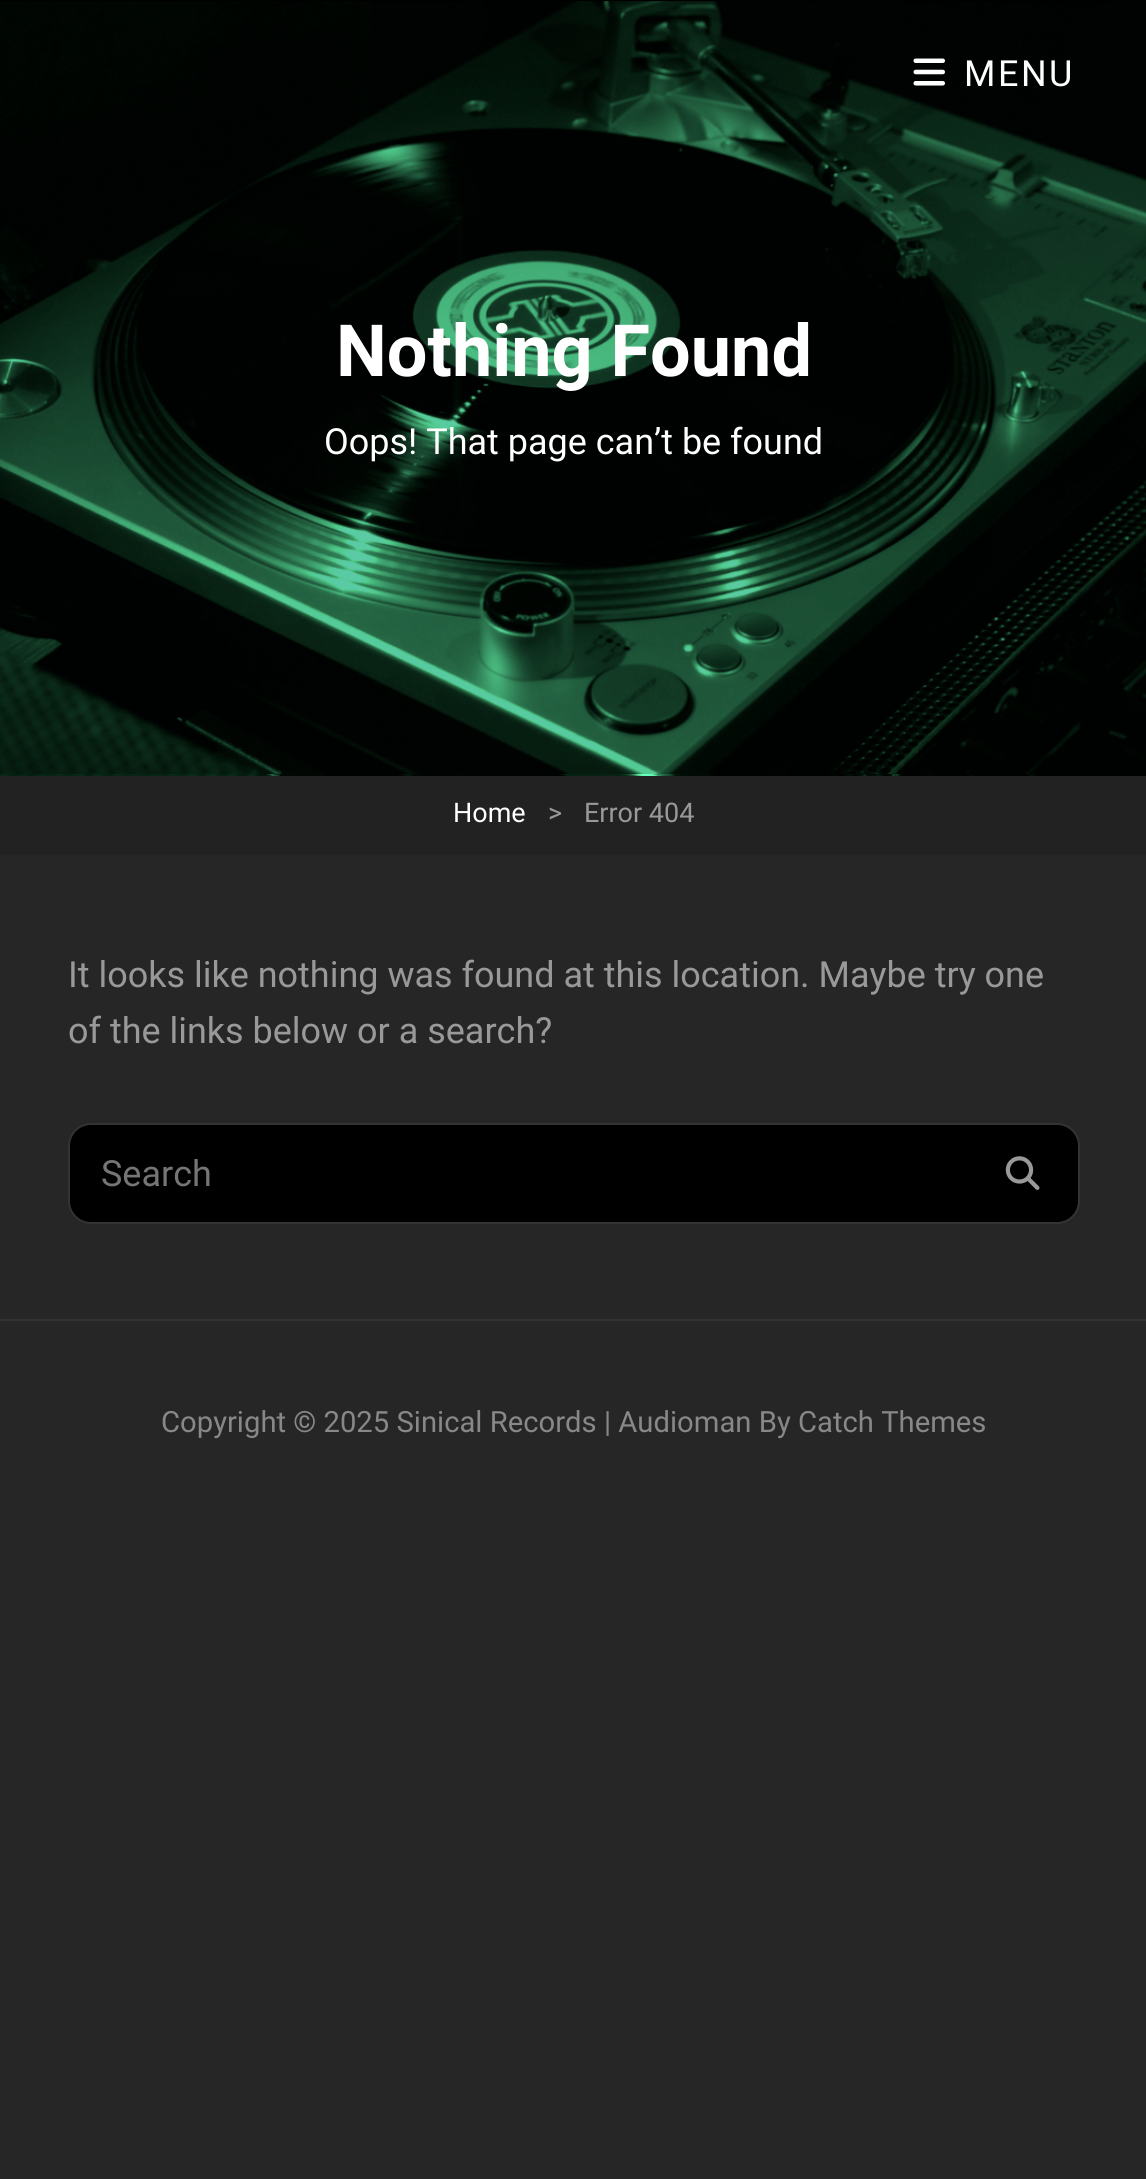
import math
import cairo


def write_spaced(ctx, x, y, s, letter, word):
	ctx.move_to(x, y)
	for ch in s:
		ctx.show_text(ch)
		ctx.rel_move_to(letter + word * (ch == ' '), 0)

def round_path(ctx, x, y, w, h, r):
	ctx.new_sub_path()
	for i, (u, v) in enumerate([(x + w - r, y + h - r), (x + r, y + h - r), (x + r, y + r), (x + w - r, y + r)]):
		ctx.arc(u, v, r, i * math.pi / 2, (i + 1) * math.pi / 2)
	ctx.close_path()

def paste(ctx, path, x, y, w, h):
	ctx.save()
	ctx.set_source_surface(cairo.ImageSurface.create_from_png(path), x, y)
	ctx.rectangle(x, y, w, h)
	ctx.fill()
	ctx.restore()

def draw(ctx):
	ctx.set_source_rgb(0.149, 0.149, 0.149)
	ctx.paint()
	paste(ctx, 'media/2.png', 0, 1, 1146, 773)
	paste(ctx, 'media/1.png', 913, 58, 32, 28)
	ctx.select_font_face('Roboto')
	ctx.set_font_size(36)
	ctx.set_source_rgb(1, 1, 1)
	write_spaced(ctx, 964, 86, 'MENU', 2.5, 0)
	ctx.set_source_rgb(0, 0, 0)
	ctx.rectangle(0, 0, 1146, 1)
	ctx.fill()
	ctx.select_font_face('Roboto', cairo.FONT_SLANT_NORMAL, cairo.FONT_WEIGHT_BOLD)
	ctx.set_font_size(72)
	ctx.set_source_rgb(1, 1, 1)
	ctx.move_to(336, 376)
	ctx.show_text('Nothing Found')
	ctx.select_font_face('Roboto')
	ctx.set_font_size(36)
	ctx.move_to(324, 454)
	ctx.show_text('Oops! That page can’t be found')
	paste(ctx, 'media/3.png', 0, 774, 1146, 2)
	ctx.set_source_rgb(0.133, 0.133, 0.133)
	ctx.rectangle(0, 776, 1146, 79)
	ctx.fill()
	ctx.set_font_size(27)
	ctx.set_source_rgb(1, 1, 1)
	ctx.move_to(453, 822)
	ctx.show_text('Home')
	ctx.set_source_rgb(0.6, 0.6, 0.6)
	ctx.move_to(548, 822)
	ctx.show_text('>')
	ctx.move_to(584, 822)
	ctx.show_text('Error 404')
	ctx.set_source_rgb(0.2, 0.2, 0.2)
	ctx.rectangle(0, 1319, 1146, 2)
	ctx.fill()
	ctx.set_font_size(36)
	ctx.set_source_rgb(0.6, 0.6, 0.6)
	ctx.move_to(68, 987)
	ctx.show_text('It looks like nothing was found at this location. Maybe try one')
	ctx.move_to(68, 1043)
	ctx.show_text('of the links below or a search?')
	ctx.set_source_rgb(0, 0, 0)
	round_path(ctx, 69, 1124, 1010, 99, 22)
	ctx.fill_preserve()
	ctx.set_source_rgb(0.2, 0.2, 0.2)
	ctx.stroke()
	ctx.set_source_rgb(0.459, 0.459, 0.459)
	ctx.move_to(101, 1186)
	ctx.show_text('Search')
	paste(ctx, 'media/4.png', 1005, 1156, 35, 34)
	ctx.set_font_size(29.25)
	ctx.set_source_rgb(0.533, 0.533, 0.533)
	ctx.move_to(161, 1432)
	ctx.show_text('Copyright © 2025 Sinical Records | Audioman By Catch Themes')


surface = cairo.ImageSurface(cairo.FORMAT_RGB24, 1146, 2179)
ctx = cairo.Context(surface)
options = cairo.FontOptions()
options.set_hint_metrics(cairo.HINT_METRICS_OFF)
options.set_hint_style(cairo.HINT_STYLE_NONE)
ctx.set_font_options(options)
ctx.set_miter_limit(4)
draw(ctx)
surface.write_to_png('image.png')
